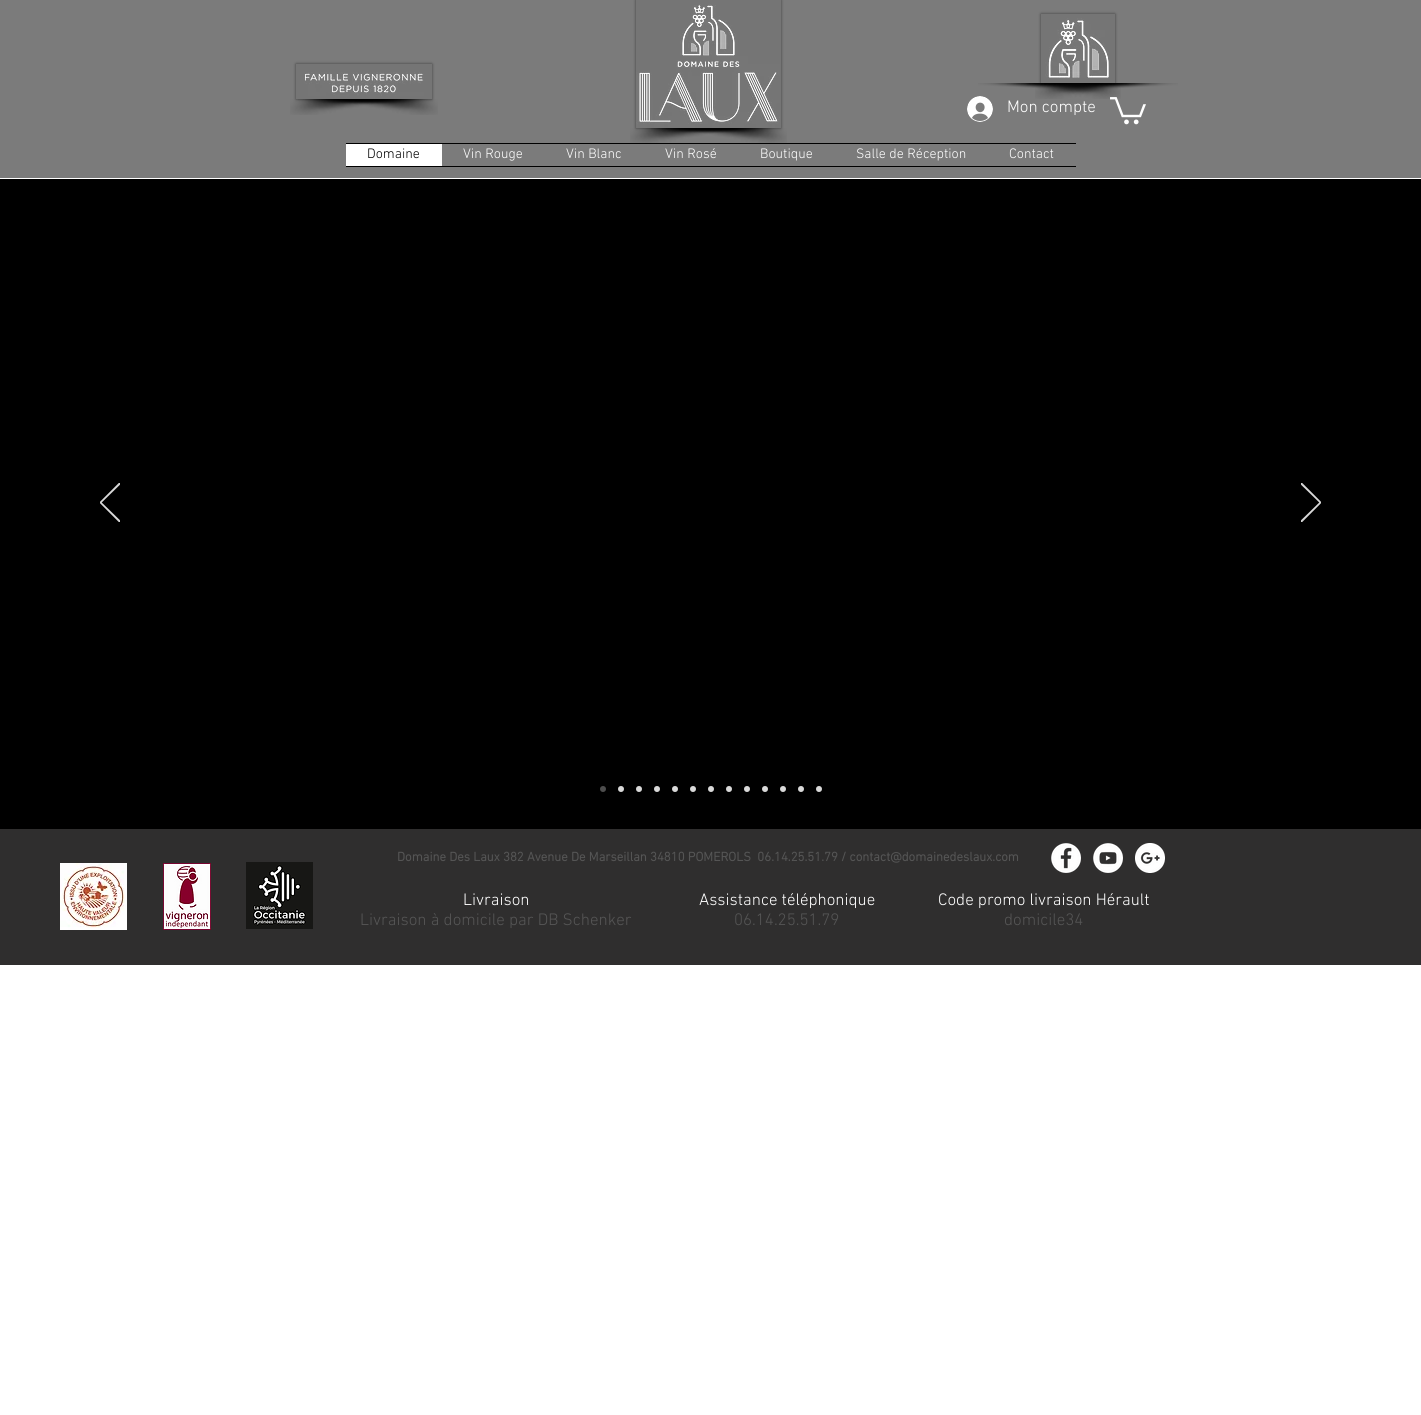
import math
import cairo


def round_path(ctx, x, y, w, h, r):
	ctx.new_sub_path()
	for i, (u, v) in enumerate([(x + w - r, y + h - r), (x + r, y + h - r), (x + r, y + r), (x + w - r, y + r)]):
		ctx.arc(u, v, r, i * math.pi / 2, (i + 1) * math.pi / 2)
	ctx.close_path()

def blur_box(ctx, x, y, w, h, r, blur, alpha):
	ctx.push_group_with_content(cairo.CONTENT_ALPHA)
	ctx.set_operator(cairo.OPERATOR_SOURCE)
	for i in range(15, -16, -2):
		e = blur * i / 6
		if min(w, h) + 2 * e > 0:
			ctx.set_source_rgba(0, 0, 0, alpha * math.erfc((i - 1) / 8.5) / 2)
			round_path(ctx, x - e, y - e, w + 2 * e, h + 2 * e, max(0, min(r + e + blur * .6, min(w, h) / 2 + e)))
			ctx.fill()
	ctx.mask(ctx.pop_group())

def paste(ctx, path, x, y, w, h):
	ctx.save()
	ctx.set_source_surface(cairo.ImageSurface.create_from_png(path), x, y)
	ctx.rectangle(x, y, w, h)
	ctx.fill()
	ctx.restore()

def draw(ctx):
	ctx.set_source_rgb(1, 1, 1)
	ctx.paint()
	ctx.set_source_rgb(0.482, 0.482, 0.482)
	ctx.rectangle(0, 0, 1421, 178)
	ctx.fill()
	ctx.set_source_rgb(0, 0, 0)
	blur_box(ctx, 296, 64, 136, 35, 0, 1.5, 0.5)
	paste(ctx, 'media/1.png', 296, 64, 136, 35)
	paste(ctx, 'media/2.png', 290, 99, 143, 16)
	paste(ctx, 'media/3.png', 298, 99, 140, 16)
	blur_box(ctx, 636, 0, 145, 128, 0, 1.5, 0.5)
	paste(ctx, 'media/4.png', 636, 0, 145, 128)
	paste(ctx, 'media/5.png', 630, 128, 140, 15)
	paste(ctx, 'media/6.png', 651, 128, 136, 15)
	blur_box(ctx, 1041, 14, 74, 69, 0, 1.5, 0.5)
	paste(ctx, 'media/7.png', 1041, 14, 74, 69)
	paste(ctx, 'media/9.png', 1035, 83, 143, 16)
	paste(ctx, 'media/8.png', 978, 83, 143, 16)
	paste(ctx, 'media/10.png', 967, 96, 26, 26)
	ctx.select_font_face('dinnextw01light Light')
	ctx.set_font_size(17)
	ctx.set_source_rgb(1, 1, 1)
	ctx.move_to(1007, 112)
	ctx.show_text('Mon compte')
	paste(ctx, 'media/11.png', 1110, 97, 36, 28)
	ctx.set_source_rgb(0, 0, 0)
	ctx.rectangle(346, 143, 730, 1)
	ctx.rectangle(346, 166, 730, 1)
	ctx.fill()
	ctx.set_source_rgb(1, 1, 1)
	ctx.rectangle(346, 144, 96, 22)
	ctx.fill()
	ctx.set_font_size(14)
	ctx.set_source_rgb(0, 0, 0)
	ctx.move_to(367, 158)
	ctx.show_text('Domaine')
	ctx.set_source_rgb(1, 1, 1)
	for x, y, s in [
		(463, 158, 'Vin Rouge'),
		(566, 158, 'Vin Blanc'),
		(665, 158, 'Vin Rosé'),
		(760, 158, 'Boutique'),
		(856, 158, 'Salle de Réception'),
		(1009, 158, 'Contact'),
	]:
		ctx.move_to(x, y)
		ctx.show_text(s)
	ctx.set_source_rgb(0, 0, 0)
	ctx.rectangle(0, 179, 1421, 650)
	ctx.fill()
	ctx.save()
	ctx.rectangle(100, 483, 20, 39)
	ctx.clip()
	ctx.new_path()
	ctx.move_to(119.5, 522)
	ctx.line_to(100, 502.5)
	ctx.line_to(119.5, 483)
	ctx.line_to(120, 484)
	ctx.line_to(101, 502.5)
	ctx.line_to(120, 521)
	ctx.close_path()
	ctx.set_source_rgb(0.851, 0.851, 0.851)
	ctx.set_line_width(1)
	ctx.stroke()
	ctx.restore()
	ctx.save()
	ctx.rectangle(1301, 483, 20, 39)
	ctx.clip()
	ctx.new_path()
	ctx.move_to(1301.5, 522)
	ctx.line_to(1321, 502.5)
	ctx.line_to(1301.5, 483)
	ctx.line_to(1301, 484)
	ctx.line_to(1320, 502.5)
	ctx.line_to(1301, 521)
	ctx.close_path()
	ctx.set_source_rgb(0.851, 0.851, 0.851)
	ctx.set_line_width(1)
	ctx.stroke()
	ctx.restore()
	ctx.set_source_rgb(0.302, 0.302, 0.302)
	ctx.arc(603, 789, 3, 0, 2 * math.pi)
	ctx.fill()
	ctx.set_source_rgb(0.851, 0.851, 0.851)
	ctx.arc(621, 789, 3, 0, 2 * math.pi)
	ctx.fill()
	ctx.arc(639, 789, 3, 0, 2 * math.pi)
	ctx.fill()
	ctx.arc(657, 789, 3, 0, 2 * math.pi)
	ctx.fill()
	ctx.arc(675, 789, 3, 0, 2 * math.pi)
	ctx.fill()
	ctx.arc(693, 789, 3, 0, 2 * math.pi)
	ctx.fill()
	ctx.arc(711, 789, 3, 0, 2 * math.pi)
	ctx.fill()
	ctx.arc(729, 789, 3, 0, 2 * math.pi)
	ctx.fill()
	ctx.arc(747, 789, 3, 0, 2 * math.pi)
	ctx.fill()
	ctx.arc(765, 789, 3, 0, 2 * math.pi)
	ctx.fill()
	ctx.arc(783, 789, 3, 0, 2 * math.pi)
	ctx.fill()
	ctx.arc(801, 789, 3, 0, 2 * math.pi)
	ctx.fill()
	ctx.arc(819, 789, 3, 0, 2 * math.pi)
	ctx.fill()
	ctx.set_source_rgb(0.184, 0.18, 0.18)
	ctx.rectangle(0, 829, 1421, 136)
	ctx.fill()
	ctx.select_font_face('dinnextw01light', cairo.FONT_SLANT_NORMAL, cairo.FONT_WEIGHT_BOLD)
	ctx.set_font_size(13)
	ctx.set_source_rgb(0.333, 0.333, 0.333)
	ctx.move_to(397, 861)
	ctx.show_text('Domaine Des Laux 382 Avenue De Marseillan 34810 POMEROLS  06.14.25.51.79 / contact@domainedeslaux.com')
	paste(ctx, 'media/12.png', 1051, 843, 30, 30)
	paste(ctx, 'media/13.png', 1093, 843, 30, 30)
	paste(ctx, 'media/14.png', 1135, 843, 30, 30)
	paste(ctx, 'media/15.png', 60, 863, 67, 67)
	paste(ctx, 'media/16.png', 163, 863, 48, 67)
	paste(ctx, 'media/17.png', 246, 862, 67, 67)
	ctx.select_font_face('dinnextw01light Light')
	ctx.set_font_size(17)
	ctx.set_source_rgb(1, 1, 1)
	ctx.move_to(463, 905)
	ctx.show_text('Livraison')
	ctx.set_source_rgb(0.333, 0.333, 0.333)
	ctx.move_to(360, 925)
	ctx.show_text('Livraison à domicile par DB Schenker')
	ctx.set_source_rgb(1, 1, 1)
	ctx.move_to(699, 905)
	ctx.show_text('Assistance téléphonique')
	ctx.set_source_rgb(0.333, 0.333, 0.333)
	ctx.move_to(734, 925)
	ctx.show_text('06.14.25.51.79')
	ctx.set_source_rgb(1, 1, 1)
	ctx.move_to(938, 905)
	ctx.show_text('Code promo livraison Hérault')
	ctx.set_source_rgb(0.333, 0.333, 0.333)
	ctx.move_to(1004, 925)
	ctx.show_text('domicile34')


surface = cairo.ImageSurface(cairo.FORMAT_RGB24, 1421, 1415)
ctx = cairo.Context(surface)
options = cairo.FontOptions()
options.set_hint_metrics(cairo.HINT_METRICS_OFF)
options.set_hint_style(cairo.HINT_STYLE_NONE)
ctx.set_font_options(options)
ctx.set_miter_limit(4)
draw(ctx)
surface.write_to_png('image.png')
